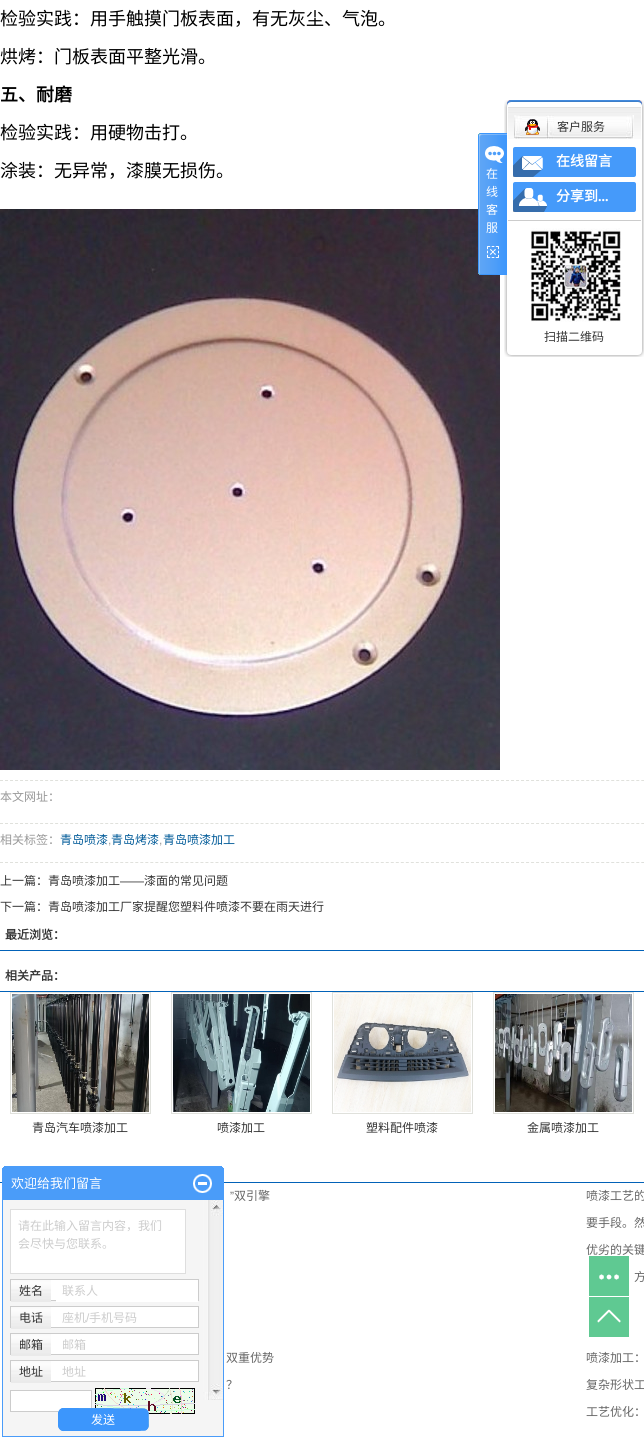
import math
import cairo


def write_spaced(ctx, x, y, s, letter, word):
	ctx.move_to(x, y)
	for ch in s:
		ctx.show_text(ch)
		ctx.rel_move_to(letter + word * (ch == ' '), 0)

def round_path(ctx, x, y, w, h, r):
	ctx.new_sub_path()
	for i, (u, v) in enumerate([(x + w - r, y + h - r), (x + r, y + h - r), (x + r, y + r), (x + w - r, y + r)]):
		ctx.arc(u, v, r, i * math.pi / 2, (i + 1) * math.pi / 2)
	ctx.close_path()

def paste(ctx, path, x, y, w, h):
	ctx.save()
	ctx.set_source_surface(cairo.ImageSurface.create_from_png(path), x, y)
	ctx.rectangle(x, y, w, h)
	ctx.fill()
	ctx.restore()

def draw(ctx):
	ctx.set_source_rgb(1, 1, 1)
	ctx.paint()
	ctx.select_font_face('Noto Sans CJK SC')
	ctx.set_font_size(18)
	ctx.set_source_rgb(0, 0, 0)
	ctx.move_to(0, 25)
	ctx.show_text('检验实践：用手触摸门板表面，有无灰尘、气泡。')
	ctx.move_to(0, 63)
	ctx.show_text('烘烤：门板表面平整光滑。')
	ctx.select_font_face('Noto Sans CJK SC', cairo.FONT_SLANT_NORMAL, cairo.FONT_WEIGHT_BOLD)
	ctx.move_to(0, 101)
	ctx.show_text('五、耐磨')
	ctx.select_font_face('Noto Sans CJK SC')
	ctx.move_to(0, 139)
	ctx.show_text('检验实践：用硬物击打。')
	ctx.move_to(0, 177)
	ctx.show_text('涂装：无异常，漆膜无损伤。')
	paste(ctx, 'media/1.png', 0, 209, 500, 561)
	ctx.new_path()
	ctx.move_to(0, 780.5)
	ctx.line_to(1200, 780.5)
	ctx.set_source_rgb(0.878, 0.882, 0.863)
	ctx.set_line_width(1)
	ctx.set_dash([3, 2.01])
	ctx.stroke()
	ctx.set_font_size(12)
	ctx.set_source_rgb(0.6, 0.6, 0.6)
	ctx.move_to(0, 801)
	ctx.show_text('本文网址：')
	ctx.new_path()
	ctx.move_to(0, 823.5)
	ctx.line_to(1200, 823.5)
	ctx.set_source_rgb(0.878, 0.882, 0.863)
	ctx.stroke()
	ctx.set_source_rgb(0.6, 0.6, 0.6)
	ctx.move_to(0, 844)
	ctx.show_text('相关标签：')
	ctx.set_source_rgb(0, 0.353, 0.596)
	ctx.move_to(60, 844)
	ctx.show_text('青岛喷漆')
	ctx.select_font_face('Liberation Sans')
	ctx.set_source_rgb(0.6, 0.6, 0.6)
	ctx.move_to(108, 844)
	ctx.show_text(',')
	ctx.select_font_face('Noto Sans CJK SC')
	ctx.set_source_rgb(0, 0.353, 0.596)
	ctx.move_to(111, 844)
	ctx.show_text('青岛烤漆')
	ctx.select_font_face('Liberation Sans')
	ctx.set_source_rgb(0.6, 0.6, 0.6)
	ctx.move_to(159, 844)
	ctx.show_text(',')
	ctx.select_font_face('Noto Sans CJK SC')
	ctx.set_source_rgb(0, 0.353, 0.596)
	ctx.move_to(163, 844)
	ctx.show_text('青岛喷漆加工')
	ctx.new_path()
	ctx.move_to(0, 862.5)
	ctx.line_to(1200, 862.5)
	ctx.set_source_rgb(0.878, 0.882, 0.863)
	ctx.stroke()
	ctx.set_source_rgb(0.2, 0.2, 0.2)
	ctx.move_to(0, 885)
	ctx.show_text('上一篇：青岛喷漆加工')
	ctx.select_font_face('Liberation Sans')
	ctx.move_to(120, 885)
	ctx.show_text('——')
	ctx.select_font_face('Noto Sans CJK SC')
	ctx.move_to(144, 885)
	ctx.show_text('漆面的常见问题')
	ctx.move_to(0, 911)
	ctx.show_text('下一篇：青岛喷漆加工厂家提醒您塑料件喷漆不要在雨天进行')
	ctx.set_source_rgb(0.008, 0.384, 0.722)
	ctx.rectangle(0, 950, 644, 1)
	ctx.fill()
	ctx.select_font_face('Noto Sans CJK SC', cairo.FONT_SLANT_NORMAL, cairo.FONT_WEIGHT_BOLD)
	ctx.set_source_rgb(0.2, 0.2, 0.2)
	ctx.move_to(5, 939)
	ctx.show_text('最近浏览：')
	ctx.set_source_rgb(0.008, 0.384, 0.722)
	ctx.rectangle(0, 991, 644, 1)
	ctx.fill()
	ctx.set_source_rgb(0.2, 0.2, 0.2)
	ctx.move_to(5, 980)
	ctx.show_text('相关产品：')
	ctx.rectangle(10.5, 992.5, 140, 121)
	ctx.set_source_rgb(0.878, 0.882, 0.863)
	ctx.set_dash([])
	ctx.stroke()
	paste(ctx, 'media/2.png', 12, 994, 137, 118)
	ctx.select_font_face('Noto Sans CJK SC')
	ctx.set_source_rgb(0.2, 0.2, 0.2)
	ctx.move_to(32, 1132)
	ctx.show_text('青岛汽车喷漆加工')
	ctx.rectangle(171.5, 992.5, 140, 121)
	ctx.set_source_rgb(0.878, 0.882, 0.863)
	ctx.stroke()
	paste(ctx, 'media/3.png', 173, 994, 137, 118)
	ctx.set_source_rgb(0.2, 0.2, 0.2)
	ctx.move_to(217, 1132)
	ctx.show_text('喷漆加工')
	ctx.rectangle(332.5, 992.5, 140, 121)
	ctx.set_source_rgb(0.878, 0.882, 0.863)
	ctx.stroke()
	paste(ctx, 'media/4.png', 334, 994, 137, 118)
	ctx.set_source_rgb(0.2, 0.2, 0.2)
	ctx.move_to(366, 1132)
	ctx.show_text('塑料配件喷漆')
	ctx.rectangle(493.5, 992.5, 140, 121)
	ctx.set_source_rgb(0.878, 0.882, 0.863)
	ctx.stroke()
	paste(ctx, 'media/5.png', 495, 994, 137, 118)
	ctx.set_source_rgb(0.2, 0.2, 0.2)
	ctx.move_to(527, 1132)
	ctx.show_text('金属喷漆加工')
	ctx.set_source_rgb(0.008, 0.384, 0.722)
	ctx.rectangle(0, 1182, 644, 1)
	ctx.fill()
	ctx.select_font_face('Liberation Sans')
	ctx.set_source_rgb(0.4, 0.4, 0.4)
	ctx.move_to(230, 1200)
	ctx.show_text('”')
	ctx.select_font_face('Noto Sans CJK SC')
	ctx.move_to(234, 1200)
	ctx.show_text('双引擎')
	write_spaced(ctx, 586, 1200, '喷漆工艺的', 0, 1)
	ctx.move_to(586, 1227)
	ctx.show_text('要手段。然')
	ctx.move_to(586, 1254)
	ctx.show_text('优劣的关键')
	write_spaced(ctx, 634, 1281, '方', 0, 1)
	for x, y, s in [
		(226, 1362, '双重优势'),
		(586, 1362, '喷漆加工：'),
		(226, 1389, '？'),
		(586, 1389, '复杂形状工'),
		(586, 1416, '工艺优化：'),
	]:
		ctx.move_to(x, y)
		ctx.show_text(s)
	ctx.set_source_rgba(0.11, 0.698, 0.396, 0.7)
	ctx.rectangle(589, 1256, 40, 40)
	ctx.fill()
	paste(ctx, 'media/6.png', 599, 1274, 20, 6)
	ctx.rectangle(589, 1297, 40, 40)
	ctx.fill()
	paste(ctx, 'media/7.png', 597, 1309, 24, 14)
	paste(ctx, 'media/11.png', 504, 107, 140, 242)
	paste(ctx, 'media/8.png', 478, 133, 29, 142)
	ctx.set_source_rgb(1, 1, 1)
	for x, y, s in [
		(486, 178, '在'),
		(486, 196, '线'),
		(486, 214, '客'),
		(486, 232, '服'),
	]:
		ctx.move_to(x, y)
		ctx.show_text(s)
	paste(ctx, 'media/9.png', 487, 246, 12, 12)
	paste(ctx, 'media/10.png', 504, 100, 140, 7)
	paste(ctx, 'media/12.png', 508, 107, 133, 32)
	paste(ctx, 'media/13.png', 514, 115, 120, 24)
	paste(ctx, 'media/14.png', 525, 119, 15, 16)
	ctx.set_source_rgb(0.2, 0.2, 0.2)
	ctx.move_to(557, 131)
	ctx.show_text('客户服务')
	ctx.set_source_rgb(0.271, 0.604, 0.98)
	round_path(ctx, 513, 147, 123, 30, 2)
	ctx.fill()
	paste(ctx, 'media/15.png', 513, 156, 30, 21)
	ctx.select_font_face('Noto Sans CJK SC', cairo.FONT_SLANT_NORMAL, cairo.FONT_WEIGHT_BOLD)
	ctx.set_font_size(14)
	ctx.set_source_rgb(1, 1, 1)
	ctx.move_to(556, 166)
	ctx.show_text('在线留言')
	ctx.set_source_rgb(0.271, 0.604, 0.98)
	round_path(ctx, 513, 182, 123, 30, 2)
	ctx.fill()
	paste(ctx, 'media/16.png', 513, 188, 34, 24)
	ctx.set_source_rgb(1, 1, 1)
	ctx.move_to(556, 201)
	ctx.show_text('分享到')
	ctx.select_font_face('Liberation Serif', cairo.FONT_SLANT_NORMAL, cairo.FONT_WEIGHT_BOLD)
	ctx.move_to(598, 201)
	ctx.show_text('...')
	ctx.set_source_rgb(0.8, 0.8, 0.8)
	ctx.rectangle(508, 220, 133, 1)
	ctx.fill()
	paste(ctx, 'media/17.png', 531, 228, 90, 94)
	ctx.select_font_face('Noto Sans CJK SC')
	ctx.set_font_size(12)
	ctx.set_source_rgb(0.2, 0.2, 0.2)
	ctx.move_to(544, 341)
	ctx.show_text('扫描二维码')
	paste(ctx, 'media/18.png', 504, 349, 140, 8)
	ctx.set_source_rgb(0.29, 0.612, 0.976)
	ctx.rectangle(4, 1166, 218, 1)
	ctx.rectangle(3, 1167, 220, 1)
	ctx.rectangle(2, 1168, 222, 31)
	ctx.fill()
	ctx.set_font_size(13)
	ctx.set_source_rgb(1, 1, 1)
	ctx.move_to(11, 1188)
	ctx.show_text('欢迎给我们留言')
	paste(ctx, 'media/19.png', 193, 1174, 19, 19)
	paste(ctx, 'media/20.png', 3, 1200, 220, 236)
	ctx.rectangle(2.5, 1199.5, 221, 237)
	ctx.set_source_rgb(0.29, 0.612, 0.976)
	ctx.stroke()
	ctx.set_source_rgb(1, 1, 1)
	ctx.rectangle(10.5, 1209.5, 175, 64)
	ctx.fill_preserve()
	ctx.set_source_rgb(0.871, 0.871, 0.871)
	ctx.stroke()
	ctx.set_font_size(12)
	ctx.set_source_rgb(0.8, 0.8, 0.8)
	ctx.move_to(18, 1230)
	ctx.show_text('请在此输入留言内容，我们')
	ctx.move_to(18, 1248)
	ctx.show_text('会尽快与您联系。')
	ctx.set_source_rgb(1, 1, 1)
	ctx.rectangle(51, 1280, 5, 20)
	ctx.fill()
	ctx.rectangle(10.5, 1279.5, 188, 21)
	ctx.set_source_rgb(0.8, 0.8, 0.8)
	ctx.stroke()
	paste(ctx, 'media/21.png', 11, 1280, 40, 22)
	ctx.set_source_rgb(0.2, 0.2, 0.2)
	ctx.move_to(19, 1295)
	ctx.show_text('姓名')
	ctx.set_source_rgb(1, 1, 1)
	ctx.rectangle(56, 1280, 142, 22)
	ctx.fill()
	ctx.set_source_rgb(0.8, 0.8, 0.8)
	ctx.move_to(62, 1295)
	ctx.show_text('联系人')
	ctx.set_source_rgb(1, 1, 1)
	ctx.rectangle(51, 1307, 147, 20)
	ctx.fill()
	ctx.rectangle(10.5, 1306.5, 188, 21)
	ctx.set_source_rgb(0.8, 0.8, 0.8)
	ctx.stroke()
	paste(ctx, 'media/21.png', 11, 1307, 40, 22)
	ctx.set_source_rgb(0.2, 0.2, 0.2)
	ctx.move_to(19, 1322)
	ctx.show_text('电话')
	ctx.set_source_rgb(0.8, 0.8, 0.8)
	ctx.move_to(62, 1322)
	ctx.show_text('座机')
	ctx.select_font_face('Liberation Sans')
	ctx.move_to(86, 1322)
	ctx.show_text('/')
	ctx.select_font_face('Noto Sans CJK SC')
	ctx.move_to(89, 1322)
	ctx.show_text('手机号码')
	ctx.set_source_rgb(1, 1, 1)
	ctx.rectangle(51, 1334, 147, 20)
	ctx.fill()
	ctx.rectangle(10.5, 1333.5, 188, 21)
	ctx.set_source_rgb(0.8, 0.8, 0.8)
	ctx.stroke()
	paste(ctx, 'media/21.png', 11, 1334, 40, 22)
	ctx.set_source_rgb(0.2, 0.2, 0.2)
	ctx.move_to(19, 1349)
	ctx.show_text('邮箱')
	ctx.set_source_rgb(0.8, 0.8, 0.8)
	ctx.move_to(62, 1349)
	ctx.show_text('邮箱')
	ctx.set_source_rgb(1, 1, 1)
	ctx.rectangle(51, 1361, 147, 20)
	ctx.fill()
	ctx.rectangle(10.5, 1360.5, 188, 21)
	ctx.set_source_rgb(0.8, 0.8, 0.8)
	ctx.stroke()
	paste(ctx, 'media/21.png', 11, 1361, 40, 22)
	ctx.set_source_rgb(0.2, 0.2, 0.2)
	ctx.move_to(19, 1376)
	ctx.show_text('地址')
	ctx.set_source_rgb(0.8, 0.8, 0.8)
	ctx.move_to(62, 1376)
	ctx.show_text('地址')
	ctx.set_source_rgb(1, 1, 1)
	ctx.rectangle(10.5, 1390.5, 81, 21)
	ctx.fill_preserve()
	ctx.set_source_rgb(0.8, 0.8, 0.8)
	ctx.stroke()
	paste(ctx, 'media/22.png', 95, 1388, 100, 26)
	paste(ctx, 'media/23.png', 58, 1408, 91, 24)
	ctx.set_source_rgb(1, 1, 1)
	ctx.move_to(91, 1424)
	ctx.show_text('发送')


surface = cairo.ImageSurface(cairo.FORMAT_RGB24, 644, 1438)
ctx = cairo.Context(surface)
options = cairo.FontOptions()
options.set_hint_metrics(cairo.HINT_METRICS_OFF)
options.set_hint_style(cairo.HINT_STYLE_NONE)
ctx.set_font_options(options)
ctx.set_miter_limit(4)
draw(ctx)
surface.write_to_png('image.png')
